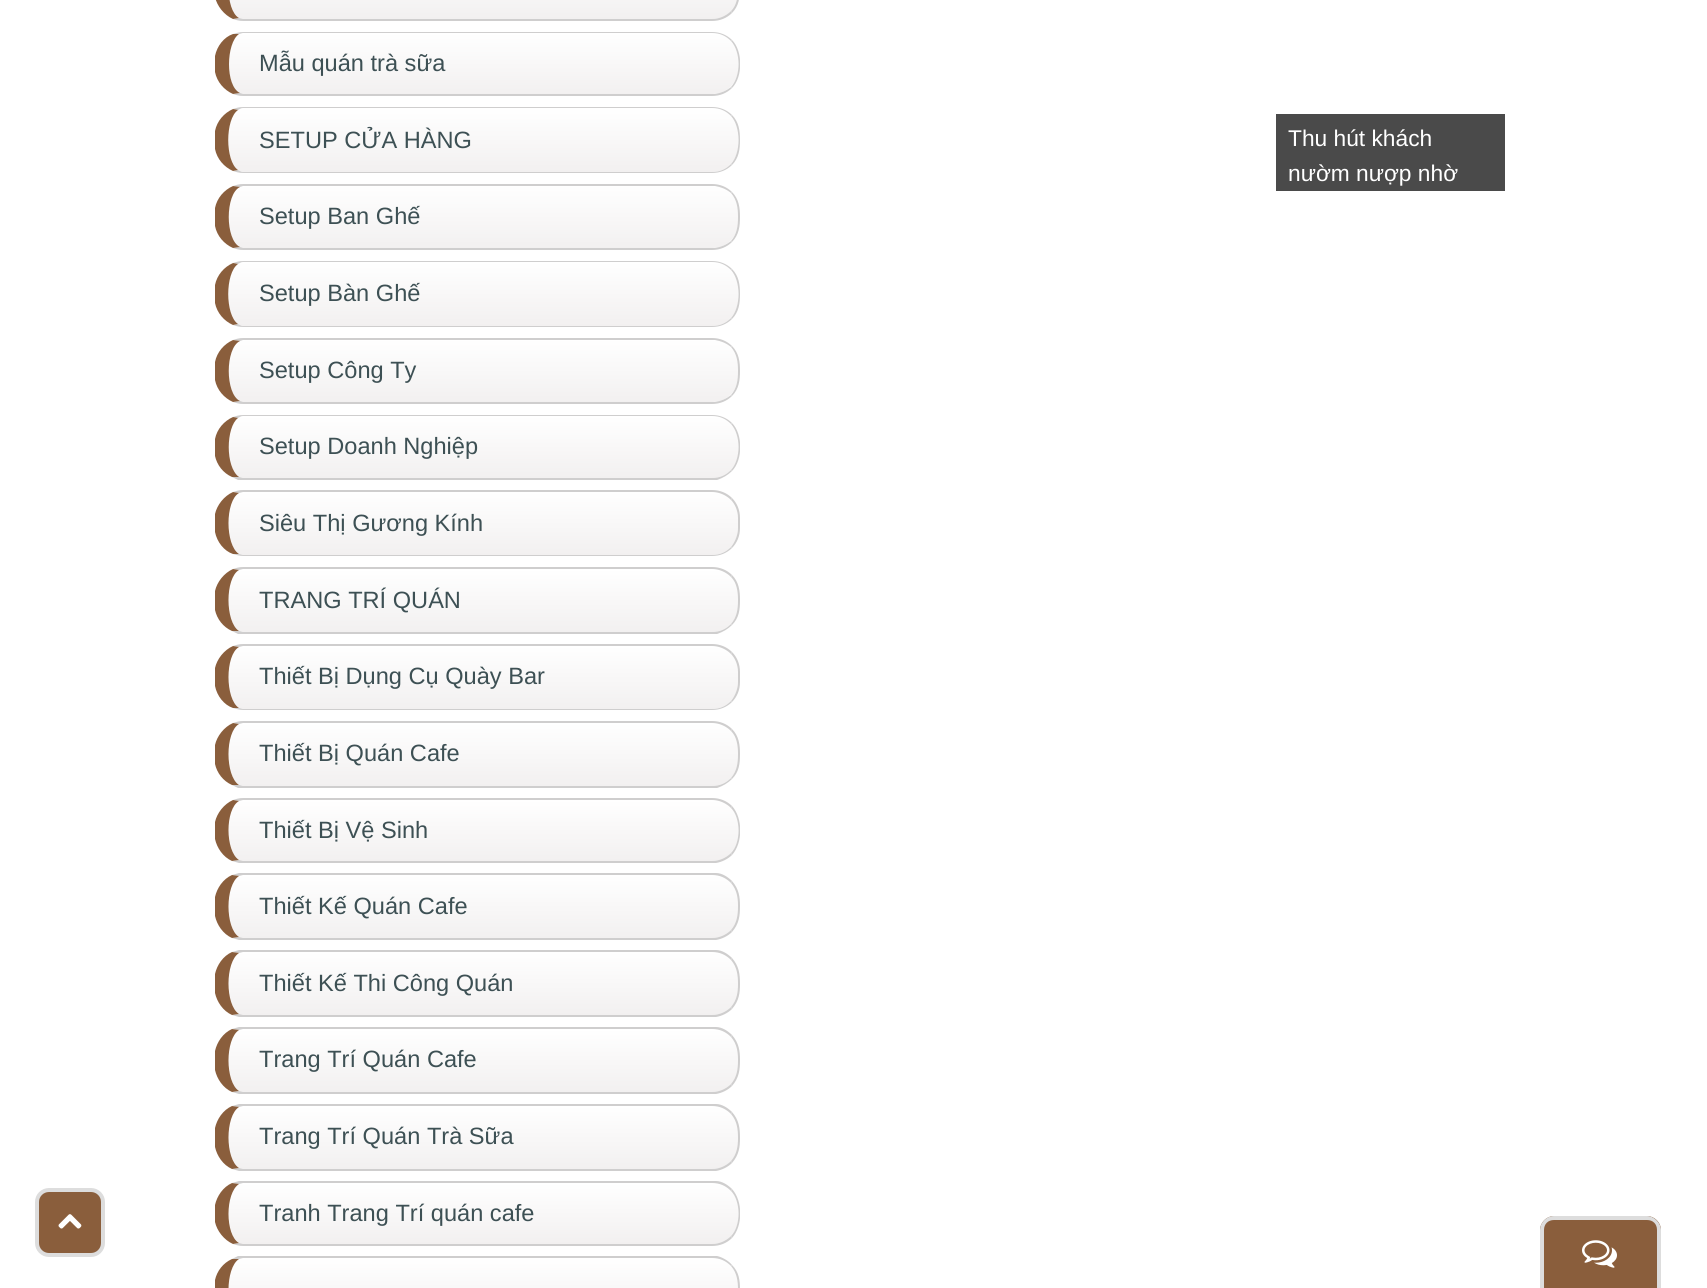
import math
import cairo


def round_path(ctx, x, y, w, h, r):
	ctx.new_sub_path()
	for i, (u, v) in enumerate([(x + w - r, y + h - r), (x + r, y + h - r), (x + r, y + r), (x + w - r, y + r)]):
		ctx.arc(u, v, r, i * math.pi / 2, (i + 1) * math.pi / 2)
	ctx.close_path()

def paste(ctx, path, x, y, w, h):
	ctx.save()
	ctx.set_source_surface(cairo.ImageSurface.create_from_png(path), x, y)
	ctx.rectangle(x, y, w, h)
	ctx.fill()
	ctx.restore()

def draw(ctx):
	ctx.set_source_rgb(1, 1, 1)
	ctx.paint()
	ctx.set_source_rgb(0.541, 0.369, 0.235)
	round_path(ctx, 37, 1190, 66, 65, 12)
	ctx.fill_preserve()
	ctx.set_source_rgb(0.867, 0.867, 0.867)
	ctx.set_line_width(4)
	ctx.stroke()
	paste(ctx, 'media/1.png', 58, 1214, 24, 15)
	gradient = cairo.LinearGradient(484, -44, 484, 19)
	gradient.add_color_stop_rgba(0, 1, 1, 1, 1)
	gradient.add_color_stop_rgba(1, 0.949, 0.941, 0.941, 1)
	ctx.set_source(gradient)
	ctx.new_path()
	ctx.move_to(243, -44)
	ctx.line_to(712, -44)
	ctx.curve_to(727, -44, 738, -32, 738, -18)
	ctx.line_to(738, -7)
	ctx.curve_to(738, 7, 727, 19, 712, 19)
	ctx.line_to(243, 19)
	ctx.curve_to(236, 19, 229, 7, 229, -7)
	ctx.line_to(229, -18)
	ctx.curve_to(229, -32, 236, -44, 243, -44)
	ctx.close_path()
	ctx.fill()
	ctx.set_source_rgb(0.812, 0.808, 0.808)
	ctx.new_path()
	ctx.move_to(732, -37)
	ctx.curve_to(739, -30, 740, -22, 740, -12)
	ctx.curve_to(740, -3, 739, 6, 732, 13)
	ctx.line_to(731, 11)
	ctx.curve_to(737, 5, 738, -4, 738, -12)
	ctx.curve_to(738, -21, 737, -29, 731, -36)
	ctx.close_path()
	ctx.fill()
	ctx.new_path()
	ctx.move_to(243, 21)
	ctx.line_to(712, 21)
	ctx.curve_to(720, 21, 727, 18, 732, 13)
	ctx.line_to(731, 11)
	ctx.curve_to(726, 16, 719, 19, 712, 19)
	ctx.line_to(243, 19)
	ctx.line_to(239, 18)
	ctx.line_to(233, 19)
	ctx.curve_to(236, 20, 239, 21, 243, 21)
	ctx.close_path()
	ctx.fill()
	ctx.set_source_rgb(0.541, 0.369, 0.235)
	ctx.new_path()
	ctx.move_to(215, -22)
	ctx.curve_to(217, -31, 223, -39, 232, -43)
	ctx.line_to(239, -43)
	ctx.curve_to(225, -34, 225, 10, 239, 18)
	ctx.line_to(233, 19)
	ctx.curve_to(224, 15, 217, 6, 215, -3)
	ctx.close_path()
	ctx.fill()
	gradient = cairo.LinearGradient(484, 33, 484, 95)
	gradient.add_color_stop_rgba(0, 1, 1, 1, 1)
	gradient.add_color_stop_rgba(1, 0.949, 0.941, 0.941, 1)
	ctx.set_source(gradient)
	ctx.new_path()
	ctx.move_to(243, 33)
	ctx.line_to(712, 33)
	ctx.curve_to(727, 33, 738, 45, 738, 60)
	ctx.line_to(738, 68)
	ctx.curve_to(738, 83, 727, 94, 712, 94)
	ctx.line_to(243, 94)
	ctx.curve_to(236, 94, 229, 83, 229, 68)
	ctx.line_to(229, 60)
	ctx.curve_to(229, 45, 236, 33, 243, 33)
	ctx.close_path()
	ctx.fill()
	ctx.set_source_rgb(0.812, 0.808, 0.808)
	ctx.new_path()
	ctx.move_to(243, 32)
	ctx.curve_to(240, 32, 236, 33, 233, 34)
	ctx.line_to(239, 34)
	ctx.curve_to(240, 34, 242, 33, 243, 33)
	ctx.line_to(712, 33)
	ctx.curve_to(720, 33, 726, 36, 731, 41)
	ctx.line_to(732, 40)
	ctx.curve_to(727, 35, 720, 32, 712, 32)
	ctx.close_path()
	ctx.fill()
	ctx.save()
	ctx.rectangle(215, 0, 525, 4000)
	ctx.clip()
	ctx.new_path()
	ctx.move_to(732, 40)
	ctx.curve_to(743, 51, 743, 77, 732, 88)
	ctx.line_to(731, 87)
	ctx.curve_to(741, 76, 741, 52, 731, 41)
	ctx.close_path()
	ctx.fill()
	ctx.restore()
	ctx.new_path()
	ctx.move_to(732, 88)
	ctx.curve_to(727, 93, 720, 96, 712, 96)
	ctx.line_to(243, 96)
	ctx.curve_to(239, 96, 236, 95, 233, 94)
	ctx.line_to(240, 93)
	ctx.line_to(243, 94)
	ctx.line_to(715, 94)
	ctx.curve_to(721, 93, 726, 91, 731, 87)
	ctx.close_path()
	ctx.fill()
	ctx.set_source_rgb(0.541, 0.369, 0.235)
	ctx.new_path()
	ctx.move_to(215, 56)
	ctx.curve_to(217, 46, 224, 37, 233, 34)
	ctx.line_to(239, 34)
	ctx.curve_to(226, 43, 225, 86, 240, 93)
	ctx.line_to(233, 94)
	ctx.curve_to(224, 90, 217, 82, 215, 72)
	ctx.close_path()
	ctx.fill()
	ctx.select_font_face('Liberation Sans')
	ctx.set_font_size(23.6)
	ctx.set_source_rgb(0.239, 0.314, 0.329)
	ctx.move_to(259, 71)
	ctx.show_text('Mẫu quán trà sữa')
	gradient = cairo.LinearGradient(484, 108, 484, 172)
	gradient.add_color_stop_rgba(0, 1, 1, 1, 1)
	gradient.add_color_stop_rgba(1, 0.949, 0.941, 0.941, 1)
	ctx.set_source(gradient)
	ctx.new_path()
	ctx.move_to(243, 108)
	ctx.line_to(712, 108)
	ctx.curve_to(727, 108, 738, 120, 738, 135)
	ctx.line_to(738, 145)
	ctx.curve_to(738, 160, 727, 172, 712, 172)
	ctx.line_to(243, 172)
	ctx.curve_to(236, 172, 229, 160, 229, 145)
	ctx.line_to(229, 135)
	ctx.curve_to(229, 120, 236, 108, 243, 108)
	ctx.close_path()
	ctx.fill()
	ctx.set_source_rgb(0.812, 0.808, 0.808)
	ctx.new_path()
	ctx.move_to(243, 107)
	ctx.curve_to(239, 107, 236, 108, 233, 109)
	ctx.line_to(238, 110)
	ctx.curve_to(240, 109, 241, 108, 243, 108)
	ctx.line_to(712, 108)
	ctx.curve_to(720, 108, 726, 111, 731, 116)
	ctx.line_to(732, 115)
	ctx.curve_to(727, 110, 720, 107, 712, 107)
	ctx.close_path()
	ctx.fill()
	ctx.new_path()
	ctx.move_to(732, 115)
	ctx.curve_to(739, 122, 740, 131, 740, 140)
	ctx.curve_to(740, 149, 739, 158, 732, 165)
	ctx.line_to(731, 164)
	ctx.curve_to(741, 153, 741, 127, 731, 116)
	ctx.close_path()
	ctx.fill()
	ctx.new_path()
	ctx.move_to(732, 165)
	ctx.curve_to(727, 170, 720, 173, 712, 173)
	ctx.line_to(243, 173)
	ctx.curve_to(239, 173, 236, 172, 233, 171)
	ctx.line_to(238, 170)
	ctx.curve_to(240, 171, 241, 172, 243, 172)
	ctx.line_to(712, 172)
	ctx.curve_to(720, 172, 726, 169, 731, 164)
	ctx.close_path()
	ctx.fill()
	ctx.set_source_rgb(0.541, 0.369, 0.235)
	ctx.new_path()
	ctx.move_to(215, 131)
	ctx.curve_to(217, 121, 224, 113, 233, 109)
	ctx.line_to(238, 110)
	ctx.curve_to(225, 119, 225, 161, 238, 170)
	ctx.line_to(233, 171)
	ctx.curve_to(224, 167, 217, 159, 215, 149)
	ctx.close_path()
	ctx.fill()
	ctx.set_source_rgb(0.239, 0.314, 0.329)
	ctx.move_to(259, 148)
	ctx.show_text('SETUP CỬA HÀNG')
	gradient = cairo.LinearGradient(484, 185, 484, 249)
	gradient.add_color_stop_rgba(0, 1, 1, 1, 1)
	gradient.add_color_stop_rgba(1, 0.949, 0.941, 0.941, 1)
	ctx.set_source(gradient)
	ctx.new_path()
	ctx.move_to(243, 186)
	ctx.line_to(712, 186)
	ctx.curve_to(727, 186, 738, 197, 738, 212)
	ctx.line_to(738, 222)
	ctx.curve_to(738, 237, 727, 248, 712, 248)
	ctx.line_to(243, 248)
	ctx.curve_to(236, 248, 229, 237, 229, 222)
	ctx.line_to(229, 212)
	ctx.curve_to(229, 197, 236, 186, 243, 186)
	ctx.close_path()
	ctx.fill()
	ctx.set_source_rgb(0.812, 0.808, 0.808)
	ctx.new_path()
	ctx.move_to(243, 184)
	ctx.curve_to(239, 184, 236, 185, 233, 186)
	ctx.line_to(240, 187)
	ctx.line_to(243, 186)
	ctx.line_to(715, 186)
	ctx.curve_to(721, 187, 726, 189, 731, 193)
	ctx.line_to(732, 192)
	ctx.curve_to(727, 187, 720, 184, 712, 184)
	ctx.close_path()
	ctx.fill()
	ctx.new_path()
	ctx.move_to(732, 192)
	ctx.curve_to(739, 199, 740, 208, 740, 217)
	ctx.curve_to(740, 226, 739, 235, 732, 242)
	ctx.line_to(731, 241)
	ctx.curve_to(737, 234, 738, 226, 738, 217)
	ctx.curve_to(738, 208, 737, 200, 731, 193)
	ctx.close_path()
	ctx.fill()
	ctx.new_path()
	ctx.move_to(732, 242)
	ctx.curve_to(727, 247, 720, 250, 712, 250)
	ctx.line_to(243, 250)
	ctx.curve_to(239, 250, 236, 249, 233, 248)
	ctx.line_to(240, 247)
	ctx.line_to(243, 248)
	ctx.line_to(715, 248)
	ctx.curve_to(721, 247, 726, 245, 731, 241)
	ctx.close_path()
	ctx.fill()
	ctx.set_source_rgb(0.541, 0.369, 0.235)
	ctx.new_path()
	ctx.move_to(215, 208)
	ctx.curve_to(217, 198, 224, 190, 233, 186)
	ctx.line_to(240, 187)
	ctx.curve_to(225, 194, 225, 240, 240, 247)
	ctx.line_to(233, 248)
	ctx.curve_to(224, 244, 217, 236, 215, 226)
	ctx.close_path()
	ctx.fill()
	ctx.set_source_rgb(0.239, 0.314, 0.329)
	ctx.move_to(259, 224)
	ctx.show_text('Setup Ban Ghế')
	gradient = cairo.LinearGradient(484, 262, 484, 326)
	gradient.add_color_stop_rgba(0, 1, 1, 1, 1)
	gradient.add_color_stop_rgba(1, 0.949, 0.941, 0.941, 1)
	ctx.set_source(gradient)
	ctx.new_path()
	ctx.move_to(243, 262)
	ctx.line_to(712, 262)
	ctx.curve_to(727, 262, 738, 274, 738, 289)
	ctx.line_to(738, 299)
	ctx.curve_to(738, 314, 727, 326, 712, 326)
	ctx.line_to(243, 326)
	ctx.curve_to(236, 326, 229, 314, 229, 299)
	ctx.line_to(229, 289)
	ctx.curve_to(229, 274, 236, 262, 243, 262)
	ctx.close_path()
	ctx.fill()
	ctx.set_source_rgb(0.812, 0.808, 0.808)
	ctx.new_path()
	ctx.move_to(243, 261)
	ctx.curve_to(239, 261, 236, 262, 233, 263)
	ctx.line_to(238, 264)
	ctx.curve_to(240, 263, 241, 262, 243, 262)
	ctx.line_to(712, 262)
	ctx.curve_to(720, 262, 726, 265, 731, 270)
	ctx.line_to(732, 269)
	ctx.curve_to(727, 264, 720, 261, 712, 261)
	ctx.close_path()
	ctx.fill()
	ctx.new_path()
	ctx.move_to(732, 269)
	ctx.curve_to(739, 276, 740, 285, 740, 294)
	ctx.curve_to(740, 303, 739, 312, 732, 319)
	ctx.line_to(731, 318)
	ctx.curve_to(741, 307, 741, 281, 731, 270)
	ctx.close_path()
	ctx.fill()
	ctx.new_path()
	ctx.move_to(732, 319)
	ctx.curve_to(727, 324, 720, 327, 712, 327)
	ctx.line_to(243, 327)
	ctx.curve_to(239, 327, 236, 326, 233, 325)
	ctx.line_to(238, 324)
	ctx.curve_to(240, 325, 241, 326, 243, 326)
	ctx.line_to(712, 326)
	ctx.curve_to(720, 326, 726, 323, 731, 318)
	ctx.close_path()
	ctx.fill()
	ctx.set_source_rgb(0.541, 0.369, 0.235)
	ctx.new_path()
	ctx.move_to(215, 285)
	ctx.curve_to(217, 275, 224, 267, 233, 263)
	ctx.line_to(238, 264)
	ctx.curve_to(225, 273, 225, 315, 238, 324)
	ctx.line_to(233, 325)
	ctx.curve_to(224, 321, 217, 313, 215, 303)
	ctx.close_path()
	ctx.fill()
	ctx.set_source_rgb(0.239, 0.314, 0.329)
	ctx.move_to(259, 301)
	ctx.show_text('Setup Bàn Ghế')
	gradient = cairo.LinearGradient(484, 339, 484, 403)
	gradient.add_color_stop_rgba(0, 1, 1, 1, 1)
	gradient.add_color_stop_rgba(1, 0.949, 0.941, 0.941, 1)
	ctx.set_source(gradient)
	ctx.new_path()
	ctx.move_to(243, 340)
	ctx.line_to(712, 340)
	ctx.curve_to(727, 340, 738, 351, 738, 366)
	ctx.line_to(738, 376)
	ctx.curve_to(738, 391, 727, 402, 712, 402)
	ctx.line_to(243, 402)
	ctx.curve_to(236, 402, 229, 391, 229, 376)
	ctx.line_to(229, 366)
	ctx.curve_to(229, 351, 236, 340, 243, 340)
	ctx.close_path()
	ctx.fill()
	ctx.set_source_rgb(0.812, 0.808, 0.808)
	ctx.new_path()
	ctx.move_to(243, 338)
	ctx.curve_to(239, 338, 236, 339, 233, 340)
	ctx.line_to(240, 341)
	ctx.line_to(243, 340)
	ctx.line_to(715, 340)
	ctx.curve_to(721, 341, 726, 343, 731, 347)
	ctx.line_to(732, 346)
	ctx.curve_to(727, 341, 720, 338, 712, 338)
	ctx.close_path()
	ctx.fill()
	ctx.new_path()
	ctx.move_to(732, 346)
	ctx.curve_to(739, 353, 740, 362, 740, 371)
	ctx.curve_to(740, 380, 739, 389, 732, 396)
	ctx.line_to(731, 395)
	ctx.curve_to(737, 388, 738, 380, 738, 371)
	ctx.curve_to(738, 362, 737, 354, 731, 347)
	ctx.close_path()
	ctx.fill()
	ctx.new_path()
	ctx.move_to(732, 396)
	ctx.curve_to(727, 401, 720, 404, 712, 404)
	ctx.line_to(243, 404)
	ctx.curve_to(239, 404, 236, 403, 233, 402)
	ctx.line_to(240, 401)
	ctx.line_to(243, 402)
	ctx.line_to(715, 402)
	ctx.curve_to(721, 401, 726, 399, 731, 395)
	ctx.close_path()
	ctx.fill()
	ctx.set_source_rgb(0.541, 0.369, 0.235)
	ctx.new_path()
	ctx.move_to(215, 362)
	ctx.curve_to(217, 352, 224, 344, 233, 340)
	ctx.line_to(240, 341)
	ctx.curve_to(225, 348, 225, 394, 240, 401)
	ctx.line_to(233, 402)
	ctx.curve_to(224, 398, 217, 390, 215, 380)
	ctx.close_path()
	ctx.fill()
	ctx.set_source_rgb(0.239, 0.314, 0.329)
	ctx.move_to(259, 378)
	ctx.show_text('Setup Công Ty')
	gradient = cairo.LinearGradient(484, 416, 484, 478)
	gradient.add_color_stop_rgba(0, 1, 1, 1, 1)
	gradient.add_color_stop_rgba(1, 0.949, 0.941, 0.941, 1)
	ctx.set_source(gradient)
	ctx.new_path()
	ctx.move_to(243, 416)
	ctx.line_to(712, 416)
	ctx.curve_to(727, 416, 738, 428, 738, 443)
	ctx.line_to(738, 452)
	ctx.curve_to(738, 466, 727, 478, 712, 478)
	ctx.line_to(243, 478)
	ctx.curve_to(236, 478, 229, 466, 229, 452)
	ctx.line_to(229, 443)
	ctx.curve_to(229, 428, 236, 416, 243, 416)
	ctx.close_path()
	ctx.fill()
	ctx.set_source_rgb(0.812, 0.808, 0.808)
	ctx.new_path()
	ctx.move_to(243, 415)
	ctx.curve_to(239, 415, 236, 416, 233, 417)
	ctx.line_to(238, 418)
	ctx.curve_to(240, 417, 241, 416, 243, 416)
	ctx.line_to(712, 416)
	ctx.curve_to(720, 416, 726, 419, 731, 424)
	ctx.line_to(732, 423)
	ctx.curve_to(727, 418, 720, 415, 712, 415)
	ctx.close_path()
	ctx.fill()
	ctx.save()
	ctx.rectangle(215, 0, 525, 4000)
	ctx.clip()
	ctx.new_path()
	ctx.move_to(732, 423)
	ctx.curve_to(743, 434, 743, 460, 732, 471)
	ctx.line_to(731, 470)
	ctx.curve_to(741, 459, 741, 435, 731, 424)
	ctx.close_path()
	ctx.fill()
	ctx.restore()
	ctx.new_path()
	ctx.move_to(238, 480)
	ctx.line_to(232, 477)
	ctx.line_to(239, 477)
	ctx.curve_to(240, 477, 242, 478, 243, 478)
	ctx.line_to(712, 478)
	ctx.curve_to(720, 478, 726, 475, 731, 470)
	ctx.line_to(732, 471)
	ctx.curve_to(728, 475, 723, 478, 717, 480)
	ctx.close_path()
	ctx.fill()
	ctx.set_source_rgb(0.541, 0.369, 0.235)
	ctx.new_path()
	ctx.move_to(215, 439)
	ctx.curve_to(217, 429, 224, 421, 233, 417)
	ctx.line_to(238, 418)
	ctx.curve_to(226, 427, 225, 467, 239, 477)
	ctx.line_to(232, 477)
	ctx.curve_to(223, 473, 217, 465, 215, 456)
	ctx.close_path()
	ctx.fill()
	ctx.set_source_rgb(0.239, 0.314, 0.329)
	ctx.move_to(259, 454)
	ctx.show_text('Setup Doanh Nghiệp')
	gradient = cairo.LinearGradient(484, 492, 484, 555)
	gradient.add_color_stop_rgba(0, 1, 1, 1, 1)
	gradient.add_color_stop_rgba(1, 0.949, 0.941, 0.941, 1)
	ctx.set_source(gradient)
	ctx.new_path()
	ctx.move_to(243, 492)
	ctx.line_to(712, 492)
	ctx.curve_to(727, 492, 738, 504, 738, 518)
	ctx.line_to(738, 528)
	ctx.curve_to(738, 543, 727, 555, 712, 555)
	ctx.line_to(243, 555)
	ctx.curve_to(236, 555, 229, 543, 229, 528)
	ctx.line_to(229, 518)
	ctx.curve_to(229, 504, 236, 492, 243, 492)
	ctx.close_path()
	ctx.fill()
	ctx.set_source_rgb(0.812, 0.808, 0.808)
	ctx.new_path()
	ctx.move_to(243, 490)
	ctx.curve_to(239, 490, 236, 491, 233, 492)
	ctx.line_to(239, 493)
	ctx.line_to(243, 492)
	ctx.line_to(712, 492)
	ctx.curve_to(719, 492, 726, 495, 731, 500)
	ctx.line_to(732, 498)
	ctx.curve_to(727, 493, 720, 490, 712, 490)
	ctx.close_path()
	ctx.fill()
	ctx.new_path()
	ctx.move_to(732, 498)
	ctx.curve_to(737, 503, 740, 510, 740, 518)
	ctx.line_to(740, 528)
	ctx.curve_to(740, 536, 737, 543, 732, 548)
	ctx.line_to(731, 547)
	ctx.curve_to(735, 542, 738, 535, 738, 528)
	ctx.line_to(738, 518)
	ctx.curve_to(738, 511, 735, 504, 731, 500)
	ctx.close_path()
	ctx.fill()
	ctx.new_path()
	ctx.move_to(732, 548)
	ctx.curve_to(727, 553, 720, 556, 712, 556)
	ctx.line_to(243, 556)
	ctx.curve_to(240, 556, 236, 555, 233, 554)
	ctx.line_to(239, 554)
	ctx.curve_to(240, 554, 242, 555, 243, 555)
	ctx.line_to(712, 555)
	ctx.curve_to(720, 555, 726, 552, 731, 547)
	ctx.close_path()
	ctx.fill()
	ctx.set_source_rgb(0.541, 0.369, 0.235)
	ctx.new_path()
	ctx.move_to(215, 514)
	ctx.curve_to(217, 505, 224, 496, 233, 492)
	ctx.line_to(239, 493)
	ctx.curve_to(225, 501, 225, 545, 239, 554)
	ctx.line_to(233, 554)
	ctx.curve_to(224, 551, 217, 542, 215, 532)
	ctx.close_path()
	ctx.fill()
	ctx.set_source_rgb(0.239, 0.314, 0.329)
	ctx.move_to(259, 531)
	ctx.show_text('Siêu Thị Gương Kính')
	gradient = cairo.LinearGradient(484, 569, 484, 632)
	gradient.add_color_stop_rgba(0, 1, 1, 1, 1)
	gradient.add_color_stop_rgba(1, 0.949, 0.941, 0.941, 1)
	ctx.set_source(gradient)
	ctx.new_path()
	ctx.move_to(243, 569)
	ctx.line_to(712, 569)
	ctx.curve_to(727, 569, 738, 581, 738, 595)
	ctx.line_to(738, 606)
	ctx.curve_to(738, 620, 727, 632, 712, 632)
	ctx.line_to(243, 632)
	ctx.curve_to(236, 632, 229, 620, 229, 606)
	ctx.line_to(229, 595)
	ctx.curve_to(229, 581, 236, 569, 243, 569)
	ctx.close_path()
	ctx.fill()
	ctx.set_source_rgb(0.812, 0.808, 0.808)
	ctx.new_path()
	ctx.move_to(243, 567)
	ctx.curve_to(239, 567, 236, 568, 233, 569)
	ctx.line_to(239, 570)
	ctx.line_to(243, 569)
	ctx.line_to(712, 569)
	ctx.curve_to(719, 569, 726, 572, 731, 577)
	ctx.line_to(732, 575)
	ctx.curve_to(727, 570, 720, 567, 712, 567)
	ctx.close_path()
	ctx.fill()
	ctx.new_path()
	ctx.move_to(732, 575)
	ctx.curve_to(739, 582, 740, 591, 740, 600)
	ctx.curve_to(740, 610, 739, 618, 732, 625)
	ctx.line_to(731, 624)
	ctx.curve_to(737, 617, 738, 609, 738, 600)
	ctx.curve_to(738, 592, 737, 583, 731, 577)
	ctx.close_path()
	ctx.fill()
	ctx.new_path()
	ctx.move_to(238, 634)
	ctx.line_to(232, 631)
	ctx.line_to(239, 631)
	ctx.curve_to(240, 631, 242, 632, 243, 632)
	ctx.line_to(712, 632)
	ctx.curve_to(720, 632, 726, 629, 731, 624)
	ctx.line_to(732, 625)
	ctx.curve_to(728, 629, 723, 632, 717, 634)
	ctx.close_path()
	ctx.fill()
	ctx.set_source_rgb(0.541, 0.369, 0.235)
	ctx.new_path()
	ctx.move_to(215, 591)
	ctx.curve_to(217, 582, 224, 573, 233, 569)
	ctx.line_to(239, 570)
	ctx.curve_to(225, 578, 225, 622, 239, 631)
	ctx.line_to(232, 631)
	ctx.curve_to(223, 627, 217, 619, 215, 610)
	ctx.close_path()
	ctx.fill()
	ctx.set_source_rgb(0.239, 0.314, 0.329)
	ctx.move_to(259, 608)
	ctx.show_text('TRANG TRÍ QUÁN')
	gradient = cairo.LinearGradient(484, 646, 484, 709)
	gradient.add_color_stop_rgba(0, 1, 1, 1, 1)
	gradient.add_color_stop_rgba(1, 0.949, 0.941, 0.941, 1)
	ctx.set_source(gradient)
	ctx.new_path()
	ctx.move_to(243, 646)
	ctx.line_to(712, 646)
	ctx.curve_to(727, 646, 738, 658, 738, 672)
	ctx.line_to(738, 682)
	ctx.curve_to(738, 697, 727, 709, 712, 709)
	ctx.line_to(243, 709)
	ctx.curve_to(236, 709, 229, 697, 229, 682)
	ctx.line_to(229, 672)
	ctx.curve_to(229, 658, 236, 646, 243, 646)
	ctx.close_path()
	ctx.fill()
	ctx.set_source_rgb(0.812, 0.808, 0.808)
	ctx.new_path()
	ctx.move_to(243, 644)
	ctx.curve_to(239, 644, 236, 645, 233, 646)
	ctx.line_to(239, 647)
	ctx.line_to(243, 646)
	ctx.line_to(712, 646)
	ctx.curve_to(719, 646, 726, 649, 731, 654)
	ctx.line_to(732, 652)
	ctx.curve_to(727, 647, 720, 644, 712, 644)
	ctx.close_path()
	ctx.fill()
	ctx.new_path()
	ctx.move_to(732, 652)
	ctx.curve_to(737, 657, 740, 664, 740, 672)
	ctx.line_to(740, 682)
	ctx.curve_to(740, 690, 737, 697, 732, 702)
	ctx.line_to(731, 701)
	ctx.curve_to(735, 696, 738, 689, 738, 682)
	ctx.line_to(738, 672)
	ctx.curve_to(738, 665, 735, 658, 731, 654)
	ctx.close_path()
	ctx.fill()
	ctx.new_path()
	ctx.move_to(732, 702)
	ctx.curve_to(727, 707, 720, 710, 712, 710)
	ctx.line_to(243, 710)
	ctx.curve_to(240, 710, 236, 709, 233, 708)
	ctx.line_to(239, 708)
	ctx.curve_to(240, 708, 242, 709, 243, 709)
	ctx.line_to(712, 709)
	ctx.curve_to(720, 709, 726, 706, 731, 701)
	ctx.close_path()
	ctx.fill()
	ctx.set_source_rgb(0.541, 0.369, 0.235)
	ctx.new_path()
	ctx.move_to(215, 668)
	ctx.curve_to(217, 659, 224, 650, 233, 646)
	ctx.line_to(239, 647)
	ctx.curve_to(225, 655, 225, 699, 239, 708)
	ctx.line_to(233, 708)
	ctx.curve_to(224, 705, 217, 696, 215, 686)
	ctx.close_path()
	ctx.fill()
	ctx.set_source_rgb(0.239, 0.314, 0.329)
	ctx.move_to(259, 684)
	ctx.show_text('Thiết Bị Dụng Cụ Quày Bar')
	gradient = cairo.LinearGradient(484, 723, 484, 786)
	gradient.add_color_stop_rgba(0, 1, 1, 1, 1)
	gradient.add_color_stop_rgba(1, 0.949, 0.941, 0.941, 1)
	ctx.set_source(gradient)
	ctx.new_path()
	ctx.move_to(243, 723)
	ctx.line_to(712, 723)
	ctx.curve_to(727, 723, 738, 735, 738, 749)
	ctx.line_to(738, 760)
	ctx.curve_to(738, 774, 727, 786, 712, 786)
	ctx.line_to(243, 786)
	ctx.curve_to(236, 786, 229, 774, 229, 760)
	ctx.line_to(229, 749)
	ctx.curve_to(229, 735, 236, 723, 243, 723)
	ctx.close_path()
	ctx.fill()
	ctx.set_source_rgb(0.812, 0.808, 0.808)
	ctx.new_path()
	ctx.move_to(243, 721)
	ctx.curve_to(239, 721, 236, 722, 233, 723)
	ctx.line_to(239, 724)
	ctx.line_to(243, 723)
	ctx.line_to(712, 723)
	ctx.curve_to(719, 723, 726, 726, 731, 731)
	ctx.line_to(732, 729)
	ctx.curve_to(727, 724, 720, 721, 712, 721)
	ctx.close_path()
	ctx.fill()
	ctx.new_path()
	ctx.move_to(732, 729)
	ctx.curve_to(739, 736, 740, 745, 740, 754)
	ctx.curve_to(740, 764, 739, 772, 732, 779)
	ctx.line_to(731, 778)
	ctx.curve_to(737, 771, 738, 763, 738, 754)
	ctx.curve_to(738, 746, 737, 737, 731, 731)
	ctx.close_path()
	ctx.fill()
	ctx.new_path()
	ctx.move_to(238, 788)
	ctx.line_to(232, 785)
	ctx.line_to(239, 785)
	ctx.curve_to(240, 785, 242, 786, 243, 786)
	ctx.line_to(712, 786)
	ctx.curve_to(720, 786, 726, 783, 731, 778)
	ctx.line_to(732, 779)
	ctx.curve_to(728, 783, 723, 786, 717, 788)
	ctx.close_path()
	ctx.fill()
	ctx.set_source_rgb(0.541, 0.369, 0.235)
	ctx.new_path()
	ctx.move_to(215, 745)
	ctx.curve_to(217, 736, 224, 727, 233, 723)
	ctx.line_to(239, 724)
	ctx.curve_to(225, 732, 225, 776, 239, 785)
	ctx.line_to(232, 785)
	ctx.curve_to(223, 781, 217, 773, 215, 764)
	ctx.close_path()
	ctx.fill()
	ctx.set_source_rgb(0.239, 0.314, 0.329)
	ctx.move_to(259, 761)
	ctx.show_text('Thiết Bị Quán Cafe')
	gradient = cairo.LinearGradient(484, 800, 484, 861)
	gradient.add_color_stop_rgba(0, 1, 1, 1, 1)
	gradient.add_color_stop_rgba(1, 0.949, 0.941, 0.941, 1)
	ctx.set_source(gradient)
	ctx.new_path()
	ctx.move_to(243, 800)
	ctx.line_to(712, 800)
	ctx.curve_to(727, 800, 738, 812, 738, 826)
	ctx.line_to(738, 835)
	ctx.curve_to(738, 849, 727, 861, 712, 861)
	ctx.line_to(243, 861)
	ctx.curve_to(236, 861, 229, 849, 229, 835)
	ctx.line_to(229, 826)
	ctx.curve_to(229, 812, 236, 800, 243, 800)
	ctx.close_path()
	ctx.fill()
	ctx.set_source_rgb(0.812, 0.808, 0.808)
	ctx.new_path()
	ctx.move_to(243, 798)
	ctx.curve_to(239, 798, 236, 799, 233, 800)
	ctx.line_to(239, 801)
	ctx.line_to(243, 800)
	ctx.line_to(712, 800)
	ctx.curve_to(719, 800, 726, 803, 731, 808)
	ctx.line_to(732, 806)
	ctx.curve_to(727, 801, 720, 798, 712, 798)
	ctx.close_path()
	ctx.fill()
	ctx.save()
	ctx.rectangle(215, 0, 525, 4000)
	ctx.clip()
	ctx.new_path()
	ctx.move_to(732, 806)
	ctx.curve_to(743, 818, 743, 843, 732, 855)
	ctx.line_to(731, 853)
	ctx.curve_to(741, 843, 741, 818, 731, 808)
	ctx.close_path()
	ctx.fill()
	ctx.restore()
	ctx.new_path()
	ctx.move_to(239, 863)
	ctx.line_to(232, 861)
	ctx.line_to(239, 860)
	ctx.line_to(243, 861)
	ctx.line_to(712, 861)
	ctx.curve_to(719, 861, 726, 858, 731, 853)
	ctx.line_to(732, 855)
	ctx.curve_to(728, 859, 722, 862, 716, 863)
	ctx.close_path()
	ctx.fill()
	ctx.set_source_rgb(0.541, 0.369, 0.235)
	ctx.new_path()
	ctx.move_to(215, 822)
	ctx.curve_to(217, 813, 224, 804, 233, 800)
	ctx.line_to(239, 801)
	ctx.curve_to(225, 809, 225, 851, 239, 860)
	ctx.line_to(232, 861)
	ctx.curve_to(223, 857, 217, 848, 215, 839)
	ctx.close_path()
	ctx.fill()
	ctx.set_source_rgb(0.239, 0.314, 0.329)
	ctx.move_to(259, 838)
	ctx.show_text('Thiết Bị Vệ Sinh')
	gradient = cairo.LinearGradient(484, 875, 484, 938)
	gradient.add_color_stop_rgba(0, 1, 1, 1, 1)
	gradient.add_color_stop_rgba(1, 0.949, 0.941, 0.941, 1)
	ctx.set_source(gradient)
	ctx.new_path()
	ctx.move_to(243, 875)
	ctx.line_to(712, 875)
	ctx.curve_to(727, 875, 738, 887, 738, 901)
	ctx.line_to(738, 912)
	ctx.curve_to(738, 926, 727, 938, 712, 938)
	ctx.line_to(243, 938)
	ctx.curve_to(236, 938, 229, 926, 229, 912)
	ctx.line_to(229, 901)
	ctx.curve_to(229, 887, 236, 875, 243, 875)
	ctx.close_path()
	ctx.fill()
	ctx.set_source_rgb(0.812, 0.808, 0.808)
	ctx.new_path()
	ctx.move_to(243, 875)
	ctx.line_to(239, 876)
	ctx.line_to(232, 875)
	ctx.line_to(239, 873)
	ctx.line_to(716, 873)
	ctx.curve_to(722, 873, 728, 877, 732, 881)
	ctx.line_to(731, 883)
	ctx.curve_to(726, 878, 720, 875, 712, 875)
	ctx.close_path()
	ctx.fill()
	ctx.new_path()
	ctx.move_to(732, 881)
	ctx.curve_to(739, 889, 740, 897, 740, 906)
	ctx.curve_to(740, 916, 739, 924, 732, 932)
	ctx.line_to(731, 930)
	ctx.curve_to(737, 923, 738, 915, 738, 906)
	ctx.curve_to(738, 898, 737, 890, 731, 883)
	ctx.close_path()
	ctx.fill()
	ctx.new_path()
	ctx.move_to(239, 940)
	ctx.line_to(232, 938)
	ctx.line_to(239, 937)
	ctx.line_to(243, 938)
	ctx.line_to(712, 938)
	ctx.curve_to(719, 938, 726, 935, 731, 930)
	ctx.line_to(732, 932)
	ctx.curve_to(728, 936, 722, 939, 716, 940)
	ctx.close_path()
	ctx.fill()
	ctx.set_source_rgb(0.541, 0.369, 0.235)
	ctx.new_path()
	ctx.move_to(215, 897)
	ctx.curve_to(217, 888, 223, 879, 232, 875)
	ctx.line_to(239, 876)
	ctx.curve_to(225, 885, 225, 928, 239, 937)
	ctx.line_to(232, 938)
	ctx.curve_to(223, 934, 217, 925, 215, 916)
	ctx.close_path()
	ctx.fill()
	ctx.set_source_rgb(0.239, 0.314, 0.329)
	ctx.move_to(259, 914)
	ctx.show_text('Thiết Kế Quán Cafe')
	gradient = cairo.LinearGradient(484, 952, 484, 1015)
	gradient.add_color_stop_rgba(0, 1, 1, 1, 1)
	gradient.add_color_stop_rgba(1, 0.949, 0.941, 0.941, 1)
	ctx.set_source(gradient)
	ctx.new_path()
	ctx.move_to(243, 952)
	ctx.line_to(712, 952)
	ctx.curve_to(727, 952, 738, 964, 738, 978)
	ctx.line_to(738, 989)
	ctx.curve_to(738, 1003, 727, 1015, 712, 1015)
	ctx.line_to(243, 1015)
	ctx.curve_to(236, 1015, 229, 1003, 229, 989)
	ctx.line_to(229, 978)
	ctx.curve_to(229, 964, 236, 952, 243, 952)
	ctx.close_path()
	ctx.fill()
	ctx.set_source_rgb(0.812, 0.808, 0.808)
	ctx.new_path()
	ctx.move_to(243, 952)
	ctx.line_to(239, 953)
	ctx.line_to(232, 952)
	ctx.line_to(239, 950)
	ctx.line_to(716, 950)
	ctx.curve_to(722, 950, 728, 954, 732, 958)
	ctx.line_to(731, 960)
	ctx.curve_to(726, 955, 720, 952, 712, 952)
	ctx.close_path()
	ctx.fill()
	ctx.new_path()
	ctx.move_to(732, 958)
	ctx.curve_to(739, 966, 740, 974, 740, 984)
	ctx.curve_to(740, 993, 739, 1001, 732, 1009)
	ctx.line_to(731, 1007)
	ctx.curve_to(737, 1000, 738, 992, 738, 984)
	ctx.curve_to(738, 975, 737, 967, 731, 960)
	ctx.close_path()
	ctx.fill()
	ctx.new_path()
	ctx.move_to(239, 1017)
	ctx.line_to(232, 1015)
	ctx.line_to(239, 1014)
	ctx.line_to(243, 1015)
	ctx.line_to(712, 1015)
	ctx.curve_to(719, 1015, 726, 1012, 731, 1007)
	ctx.line_to(732, 1009)
	ctx.curve_to(728, 1013, 722, 1016, 716, 1017)
	ctx.close_path()
	ctx.fill()
	ctx.set_source_rgb(0.541, 0.369, 0.235)
	ctx.new_path()
	ctx.move_to(215, 974)
	ctx.curve_to(217, 965, 223, 956, 232, 952)
	ctx.line_to(239, 953)
	ctx.curve_to(225, 962, 225, 1005, 239, 1014)
	ctx.line_to(232, 1015)
	ctx.curve_to(223, 1011, 217, 1002, 215, 993)
	ctx.close_path()
	ctx.fill()
	ctx.set_source_rgb(0.239, 0.314, 0.329)
	ctx.move_to(259, 991)
	ctx.show_text('Thiết Kế Thi Công Quán')
	gradient = cairo.LinearGradient(484, 1029, 484, 1092)
	gradient.add_color_stop_rgba(0, 1, 1, 1, 1)
	gradient.add_color_stop_rgba(1, 0.949, 0.941, 0.941, 1)
	ctx.set_source(gradient)
	ctx.new_path()
	ctx.move_to(243, 1029)
	ctx.line_to(712, 1029)
	ctx.curve_to(727, 1029, 738, 1041, 738, 1055)
	ctx.line_to(738, 1066)
	ctx.curve_to(738, 1080, 727, 1092, 712, 1092)
	ctx.line_to(243, 1092)
	ctx.curve_to(236, 1092, 229, 1080, 229, 1066)
	ctx.line_to(229, 1055)
	ctx.curve_to(229, 1041, 236, 1029, 243, 1029)
	ctx.close_path()
	ctx.fill()
	ctx.set_source_rgb(0.812, 0.808, 0.808)
	ctx.new_path()
	ctx.move_to(243, 1029)
	ctx.line_to(239, 1030)
	ctx.line_to(232, 1029)
	ctx.line_to(239, 1027)
	ctx.line_to(716, 1027)
	ctx.curve_to(722, 1027, 728, 1031, 732, 1035)
	ctx.line_to(731, 1037)
	ctx.curve_to(726, 1032, 720, 1029, 712, 1029)
	ctx.close_path()
	ctx.fill()
	ctx.new_path()
	ctx.move_to(732, 1035)
	ctx.curve_to(739, 1043, 740, 1051, 740, 1060)
	ctx.curve_to(740, 1070, 739, 1078, 732, 1086)
	ctx.line_to(731, 1084)
	ctx.curve_to(737, 1077, 738, 1069, 738, 1060)
	ctx.curve_to(738, 1052, 737, 1044, 731, 1037)
	ctx.close_path()
	ctx.fill()
	ctx.new_path()
	ctx.move_to(239, 1094)
	ctx.line_to(232, 1092)
	ctx.line_to(239, 1091)
	ctx.line_to(243, 1092)
	ctx.line_to(712, 1092)
	ctx.curve_to(719, 1092, 726, 1089, 731, 1084)
	ctx.line_to(732, 1086)
	ctx.curve_to(728, 1090, 722, 1093, 716, 1094)
	ctx.close_path()
	ctx.fill()
	ctx.set_source_rgb(0.541, 0.369, 0.235)
	ctx.new_path()
	ctx.move_to(215, 1051)
	ctx.curve_to(217, 1042, 223, 1033, 232, 1029)
	ctx.line_to(239, 1030)
	ctx.curve_to(225, 1039, 225, 1082, 239, 1091)
	ctx.line_to(232, 1092)
	ctx.curve_to(223, 1088, 217, 1079, 215, 1070)
	ctx.close_path()
	ctx.fill()
	ctx.set_source_rgb(0.239, 0.314, 0.329)
	ctx.move_to(259, 1067)
	ctx.show_text('Trang Trí Quán Cafe')
	gradient = cairo.LinearGradient(484, 1106, 484, 1169)
	gradient.add_color_stop_rgba(0, 1, 1, 1, 1)
	gradient.add_color_stop_rgba(1, 0.949, 0.941, 0.941, 1)
	ctx.set_source(gradient)
	ctx.new_path()
	ctx.move_to(243, 1106)
	ctx.line_to(712, 1106)
	ctx.curve_to(727, 1106, 738, 1118, 738, 1132)
	ctx.line_to(738, 1143)
	ctx.curve_to(738, 1157, 727, 1169, 712, 1169)
	ctx.line_to(243, 1169)
	ctx.curve_to(236, 1169, 229, 1157, 229, 1143)
	ctx.line_to(229, 1132)
	ctx.curve_to(229, 1118, 236, 1106, 243, 1106)
	ctx.close_path()
	ctx.fill()
	ctx.set_source_rgb(0.812, 0.808, 0.808)
	ctx.new_path()
	ctx.move_to(243, 1106)
	ctx.line_to(239, 1107)
	ctx.line_to(232, 1106)
	ctx.line_to(239, 1104)
	ctx.line_to(716, 1104)
	ctx.curve_to(722, 1104, 728, 1108, 732, 1112)
	ctx.line_to(731, 1114)
	ctx.curve_to(726, 1109, 720, 1106, 712, 1106)
	ctx.close_path()
	ctx.fill()
	ctx.new_path()
	ctx.move_to(732, 1112)
	ctx.curve_to(739, 1120, 740, 1128, 740, 1138)
	ctx.curve_to(740, 1147, 739, 1155, 732, 1163)
	ctx.line_to(731, 1161)
	ctx.curve_to(737, 1154, 738, 1146, 738, 1138)
	ctx.curve_to(738, 1129, 737, 1121, 731, 1114)
	ctx.close_path()
	ctx.fill()
	ctx.new_path()
	ctx.move_to(239, 1171)
	ctx.line_to(232, 1169)
	ctx.line_to(239, 1168)
	ctx.line_to(243, 1169)
	ctx.line_to(712, 1169)
	ctx.curve_to(719, 1169, 726, 1166, 731, 1161)
	ctx.line_to(732, 1163)
	ctx.curve_to(728, 1167, 722, 1170, 716, 1171)
	ctx.close_path()
	ctx.fill()
	ctx.set_source_rgb(0.541, 0.369, 0.235)
	ctx.new_path()
	ctx.move_to(215, 1128)
	ctx.curve_to(217, 1119, 223, 1110, 232, 1106)
	ctx.line_to(239, 1107)
	ctx.curve_to(225, 1116, 225, 1159, 239, 1168)
	ctx.line_to(232, 1169)
	ctx.curve_to(223, 1165, 217, 1156, 215, 1147)
	ctx.close_path()
	ctx.fill()
	ctx.set_source_rgb(0.239, 0.314, 0.329)
	ctx.move_to(259, 1144)
	ctx.show_text('Trang Trí Quán Trà Sữa')
	gradient = cairo.LinearGradient(484, 1183, 484, 1244)
	gradient.add_color_stop_rgba(0, 1, 1, 1, 1)
	gradient.add_color_stop_rgba(1, 0.949, 0.941, 0.941, 1)
	ctx.set_source(gradient)
	ctx.new_path()
	ctx.move_to(243, 1183)
	ctx.line_to(712, 1183)
	ctx.curve_to(727, 1183, 738, 1195, 738, 1209)
	ctx.line_to(738, 1218)
	ctx.curve_to(738, 1232, 727, 1244, 712, 1244)
	ctx.line_to(243, 1244)
	ctx.curve_to(236, 1244, 229, 1232, 229, 1218)
	ctx.line_to(229, 1209)
	ctx.curve_to(229, 1195, 236, 1183, 243, 1183)
	ctx.close_path()
	ctx.fill()
	ctx.set_source_rgb(0.812, 0.808, 0.808)
	ctx.new_path()
	ctx.move_to(243, 1183)
	ctx.line_to(239, 1184)
	ctx.line_to(232, 1183)
	ctx.line_to(239, 1181)
	ctx.line_to(716, 1181)
	ctx.curve_to(722, 1181, 728, 1185, 732, 1189)
	ctx.line_to(731, 1191)
	ctx.curve_to(726, 1186, 720, 1183, 712, 1183)
	ctx.close_path()
	ctx.fill()
	ctx.save()
	ctx.rectangle(215, 0, 525, 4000)
	ctx.clip()
	ctx.new_path()
	ctx.move_to(732, 1189)
	ctx.curve_to(743, 1201, 743, 1226, 732, 1238)
	ctx.line_to(731, 1236)
	ctx.curve_to(741, 1226, 741, 1201, 731, 1191)
	ctx.close_path()
	ctx.fill()
	ctx.restore()
	ctx.new_path()
	ctx.move_to(243, 1246)
	ctx.line_to(712, 1246)
	ctx.curve_to(720, 1246, 727, 1243, 732, 1238)
	ctx.line_to(731, 1236)
	ctx.curve_to(726, 1241, 719, 1244, 712, 1244)
	ctx.line_to(243, 1244)
	ctx.line_to(239, 1243)
	ctx.line_to(233, 1244)
	ctx.curve_to(236, 1245, 239, 1246, 243, 1246)
	ctx.close_path()
	ctx.fill()
	ctx.set_source_rgb(0.541, 0.369, 0.235)
	ctx.new_path()
	ctx.move_to(215, 1205)
	ctx.curve_to(217, 1196, 223, 1187, 232, 1183)
	ctx.line_to(239, 1184)
	ctx.curve_to(225, 1193, 225, 1235, 239, 1243)
	ctx.line_to(233, 1244)
	ctx.curve_to(224, 1240, 217, 1231, 215, 1222)
	ctx.close_path()
	ctx.fill()
	ctx.set_source_rgb(0.239, 0.314, 0.329)
	ctx.move_to(259, 1221)
	ctx.show_text('Tranh Trang Trí quán cafe')
	gradient = cairo.LinearGradient(484, 1258, 484, 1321)
	gradient.add_color_stop_rgba(0, 1, 1, 1, 1)
	gradient.add_color_stop_rgba(1, 0.949, 0.941, 0.941, 1)
	ctx.set_source(gradient)
	ctx.new_path()
	ctx.move_to(243, 1258)
	ctx.line_to(712, 1258)
	ctx.curve_to(727, 1258, 738, 1270, 738, 1284)
	ctx.line_to(738, 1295)
	ctx.curve_to(738, 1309, 727, 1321, 712, 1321)
	ctx.line_to(243, 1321)
	ctx.curve_to(236, 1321, 229, 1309, 229, 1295)
	ctx.line_to(229, 1284)
	ctx.curve_to(229, 1270, 236, 1258, 243, 1258)
	ctx.close_path()
	ctx.fill()
	ctx.set_source_rgb(0.812, 0.808, 0.808)
	ctx.new_path()
	ctx.move_to(243, 1258)
	ctx.line_to(239, 1259)
	ctx.line_to(232, 1259)
	ctx.line_to(238, 1256)
	ctx.line_to(717, 1256)
	ctx.curve_to(722, 1257, 729, 1261, 732, 1265)
	ctx.line_to(731, 1266)
	ctx.curve_to(726, 1261, 720, 1258, 712, 1258)
	ctx.close_path()
	ctx.fill()
	ctx.new_path()
	ctx.move_to(732, 1265)
	ctx.curve_to(739, 1272, 740, 1280, 740, 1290)
	ctx.curve_to(740, 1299, 739, 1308, 732, 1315)
	ctx.line_to(731, 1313)
	ctx.curve_to(737, 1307, 738, 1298, 738, 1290)
	ctx.curve_to(738, 1281, 737, 1273, 731, 1266)
	ctx.close_path()
	ctx.fill()
	ctx.set_source_rgb(0.541, 0.369, 0.235)
	ctx.new_path()
	ctx.move_to(215, 1280)
	ctx.curve_to(217, 1271, 223, 1263, 232, 1259)
	ctx.line_to(239, 1259)
	ctx.curve_to(225, 1268, 225, 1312, 239, 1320)
	ctx.line_to(233, 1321)
	ctx.curve_to(224, 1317, 217, 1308, 215, 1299)
	ctx.close_path()
	ctx.fill()
	ctx.set_source_rgb(0.29, 0.29, 0.29)
	ctx.rectangle(1276, 114, 229, 77)
	ctx.fill()
	ctx.set_font_size(22.75)
	ctx.set_source_rgb(1, 1, 1)
	ctx.move_to(1288, 146)
	ctx.show_text('Thu hút khách')
	ctx.move_to(1288, 181)
	ctx.show_text('nườm nượp nhờ')
	ctx.set_source_rgb(0.541, 0.369, 0.235)
	ctx.new_path()
	ctx.move_to(1554, 1216)
	ctx.line_to(1647, 1216)
	ctx.curve_to(1654.5, 1216, 1661, 1222.5, 1661, 1230)
	ctx.line_to(1661, 1288)
	ctx.line_to(1540, 1288)
	ctx.line_to(1540, 1230)
	ctx.curve_to(1540, 1222.5, 1546.5, 1216, 1554, 1216)
	ctx.close_path()
	ctx.fill()
	ctx.set_source_rgb(0.867, 0.867, 0.867)
	ctx.set_fill_rule(cairo.FILL_RULE_EVEN_ODD)
	ctx.new_path()
	ctx.move_to(1554, 1216)
	ctx.line_to(1647, 1216)
	ctx.curve_to(1654, 1216, 1661, 1223, 1661, 1230)
	ctx.line_to(1661, 1288)
	ctx.line_to(1540, 1288)
	ctx.line_to(1540, 1230)
	ctx.curve_to(1540, 1223, 1546, 1216, 1554, 1216)
	ctx.close_path()
	ctx.move_to(1554, 1220)
	ctx.line_to(1647, 1220)
	ctx.curve_to(1653, 1220, 1657, 1224, 1657, 1230)
	ctx.line_to(1657, 1288)
	ctx.line_to(1544, 1288)
	ctx.line_to(1544, 1230)
	ctx.curve_to(1544, 1224, 1548, 1220, 1554, 1220)
	ctx.close_path()
	ctx.fill()
	paste(ctx, 'media/2.png', 1582, 1240, 35, 28)


surface = cairo.ImageSurface(cairo.FORMAT_RGB24, 1707, 1288)
ctx = cairo.Context(surface)
options = cairo.FontOptions()
options.set_hint_metrics(cairo.HINT_METRICS_OFF)
options.set_hint_style(cairo.HINT_STYLE_NONE)
ctx.set_font_options(options)
ctx.set_miter_limit(4)
draw(ctx)
surface.write_to_png('image.png')
